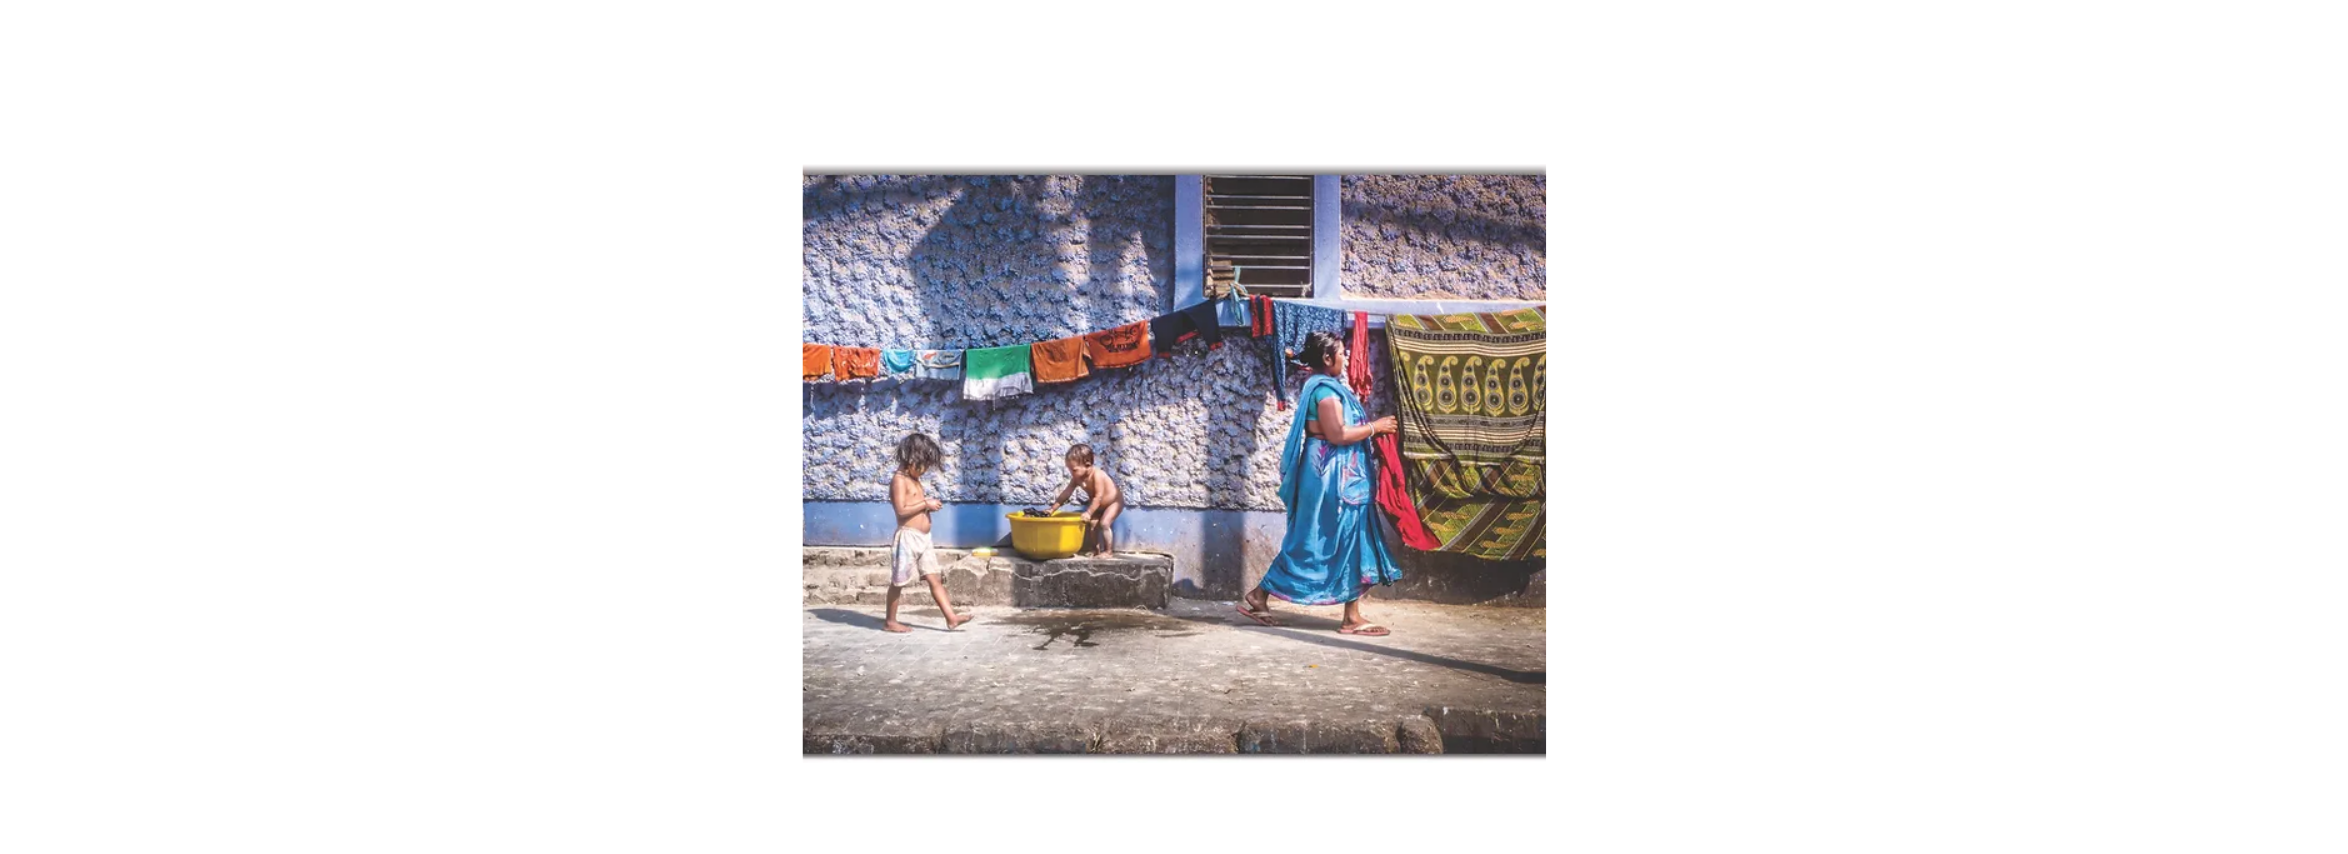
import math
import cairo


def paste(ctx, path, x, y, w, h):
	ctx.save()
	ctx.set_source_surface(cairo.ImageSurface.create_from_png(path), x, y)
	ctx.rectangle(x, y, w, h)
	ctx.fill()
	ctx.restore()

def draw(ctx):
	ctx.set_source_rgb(1, 1, 1)
	ctx.paint()
	paste(ctx, 'media/1.png', 802, 164, 745, 599)


surface = cairo.ImageSurface(cairo.FORMAT_RGB24, 2348, 854)
ctx = cairo.Context(surface)
options = cairo.FontOptions()
options.set_hint_metrics(cairo.HINT_METRICS_OFF)
options.set_hint_style(cairo.HINT_STYLE_NONE)
ctx.set_font_options(options)
ctx.set_miter_limit(4)
draw(ctx)
surface.write_to_png('image.png')
